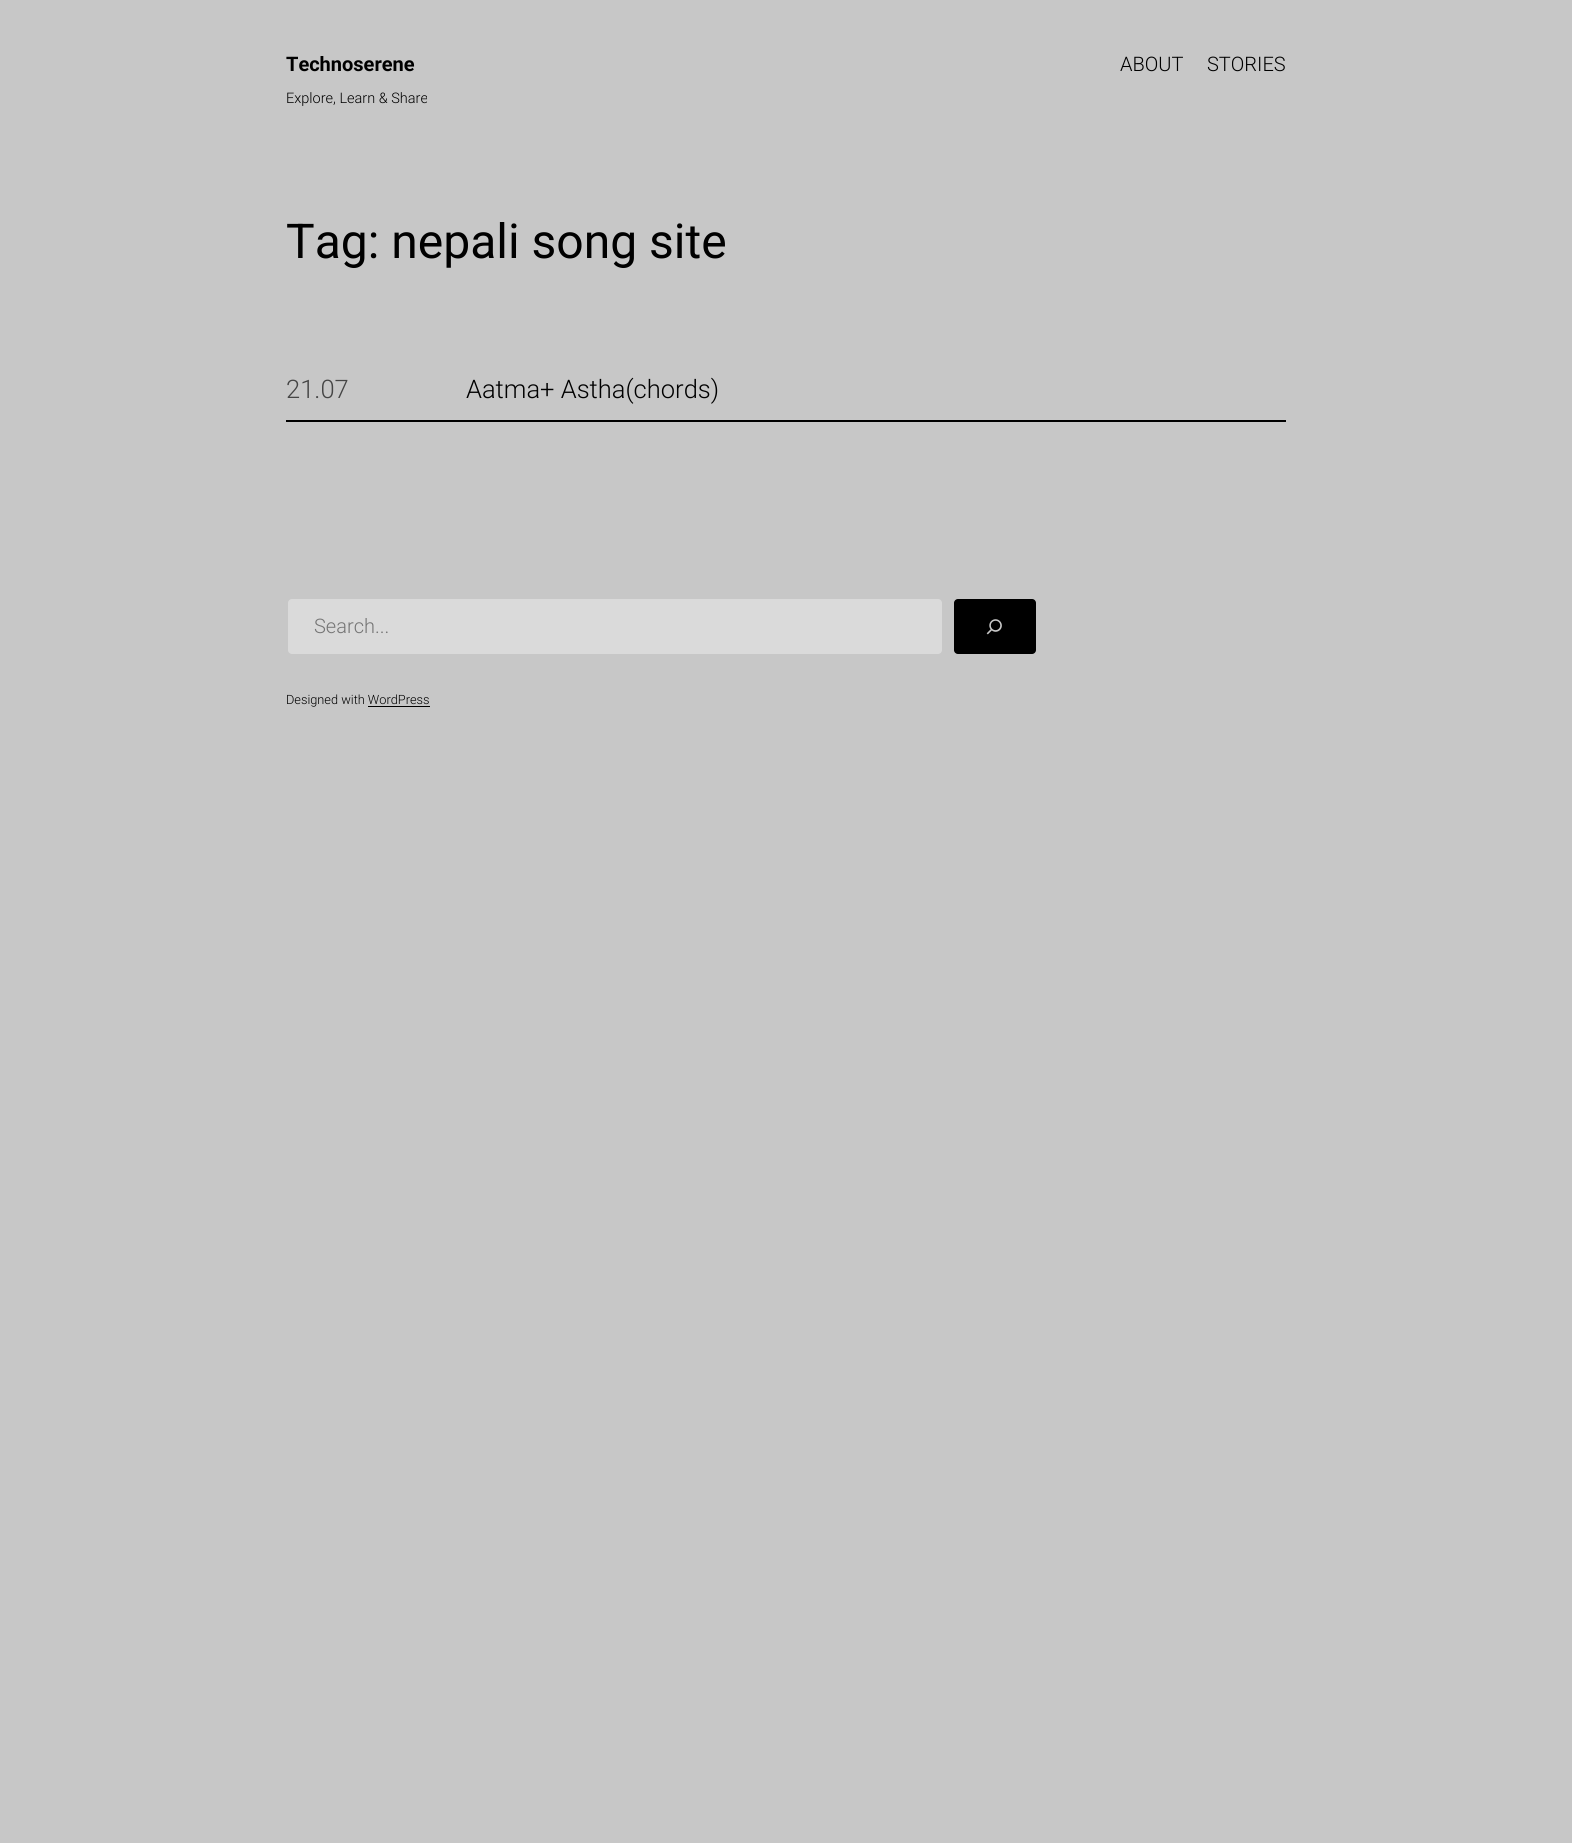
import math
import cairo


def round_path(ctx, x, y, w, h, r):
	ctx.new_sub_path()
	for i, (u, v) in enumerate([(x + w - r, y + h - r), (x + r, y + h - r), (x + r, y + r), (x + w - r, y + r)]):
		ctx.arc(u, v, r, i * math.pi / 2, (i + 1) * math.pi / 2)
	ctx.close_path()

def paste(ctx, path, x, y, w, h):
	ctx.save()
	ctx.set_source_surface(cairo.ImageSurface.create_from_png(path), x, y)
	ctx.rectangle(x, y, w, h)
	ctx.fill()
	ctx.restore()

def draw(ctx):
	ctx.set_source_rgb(0.78, 0.78, 0.78)
	ctx.paint()
	ctx.select_font_face('Roboto', cairo.FONT_SLANT_NORMAL, cairo.FONT_WEIGHT_BOLD)
	ctx.set_font_size(20)
	ctx.set_source_rgb(0, 0, 0)
	ctx.move_to(286, 71)
	ctx.show_text('Technoserene')
	ctx.select_font_face('Roboto Light')
	ctx.move_to(1120, 71)
	ctx.show_text('ABOUT')
	ctx.move_to(1207, 71)
	ctx.show_text('STORIES')
	ctx.set_font_size(14.5)
	ctx.move_to(286, 103)
	ctx.show_text('Explore, Learn & Share')
	ctx.select_font_face('Roboto')
	ctx.set_font_size(48)
	ctx.move_to(286, 258)
	ctx.show_text('Tag: nepali song site')
	ctx.rectangle(286, 420, 1000, 2)
	ctx.fill()
	ctx.select_font_face('Roboto Light')
	ctx.set_font_size(25.5)
	ctx.set_source_rgb(0.271, 0.271, 0.271)
	ctx.move_to(286, 398)
	ctx.show_text('21.07')
	ctx.set_source_rgb(0, 0, 0)
	ctx.move_to(466, 398)
	ctx.show_text('Aatma+ Astha(chords)')
	ctx.set_source_rgb(0.855, 0.855, 0.855)
	round_path(ctx, 288, 599, 654, 55, 4)
	ctx.fill()
	ctx.set_font_size(20)
	ctx.set_source_rgb(0.459, 0.459, 0.459)
	ctx.move_to(314, 633)
	ctx.show_text('Search...')
	ctx.set_source_rgb(0, 0, 0)
	round_path(ctx, 954, 599, 82, 55, 4)
	ctx.fill()
	paste(ctx, 'media/1.png', 986, 619, 16, 16)
	ctx.set_font_size(12.75)
	ctx.move_to(286, 704)
	ctx.show_text('Designed with WordPress')
	ctx.rectangle(368, 706, 62, 1)
	ctx.fill()


surface = cairo.ImageSurface(cairo.FORMAT_RGB24, 1572, 1843)
ctx = cairo.Context(surface)
options = cairo.FontOptions()
options.set_hint_metrics(cairo.HINT_METRICS_OFF)
options.set_hint_style(cairo.HINT_STYLE_NONE)
ctx.set_font_options(options)
ctx.set_miter_limit(4)
draw(ctx)
surface.write_to_png('image.png')
